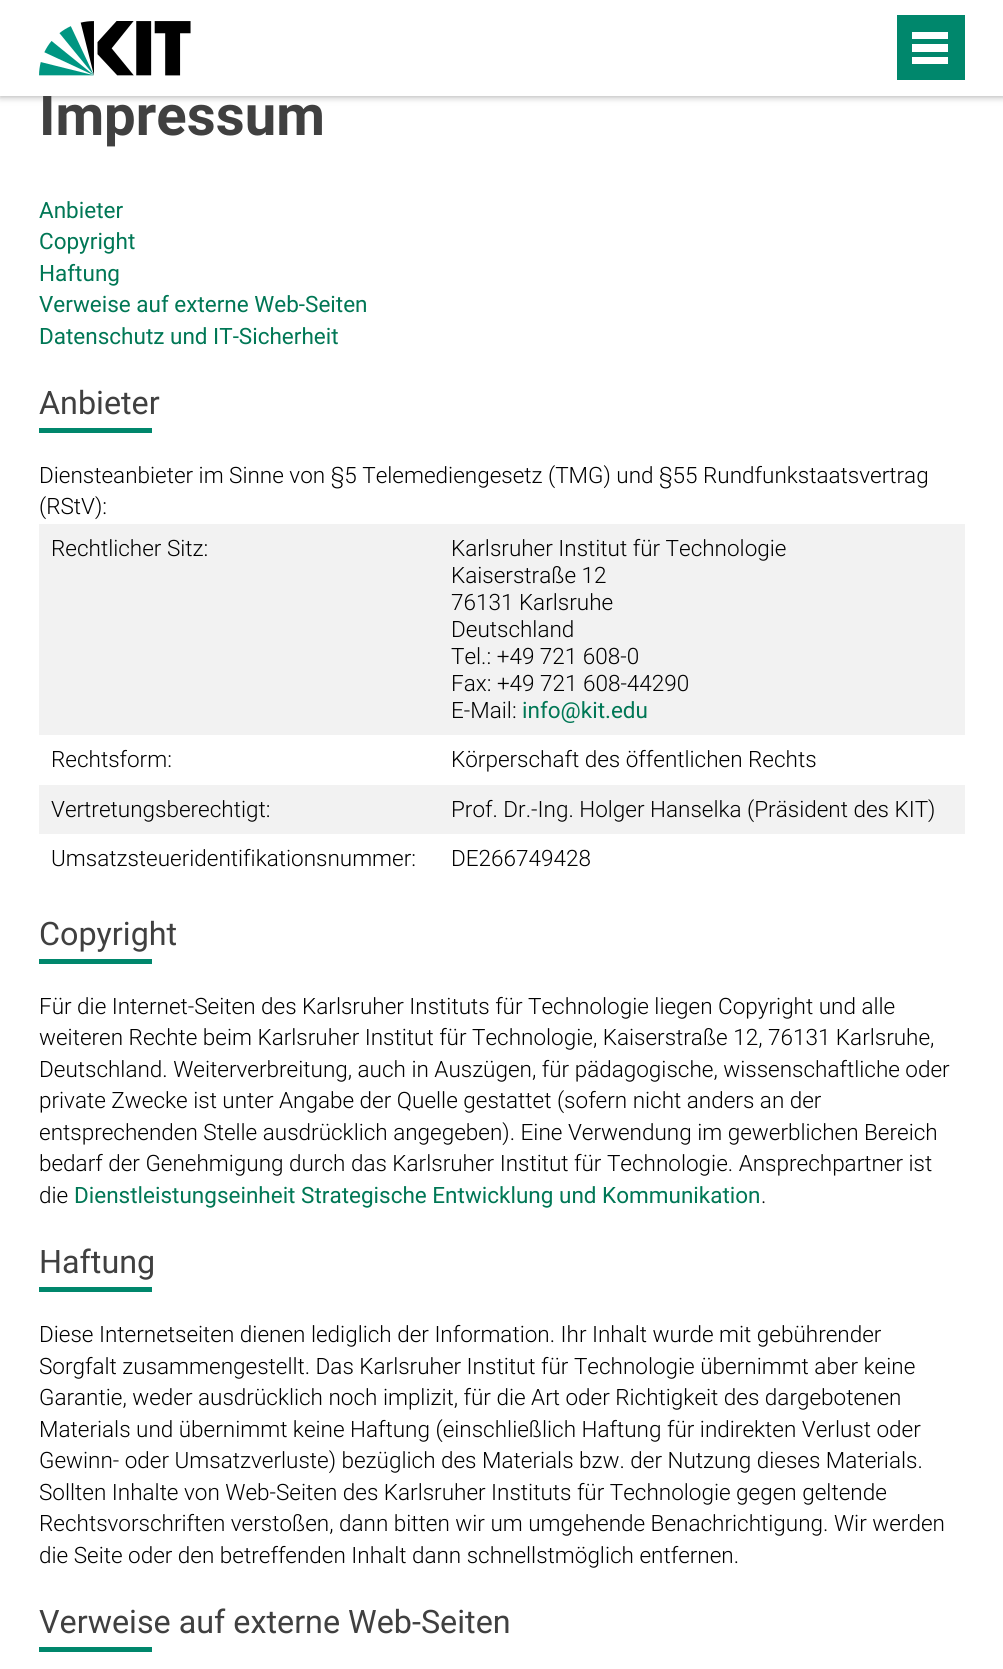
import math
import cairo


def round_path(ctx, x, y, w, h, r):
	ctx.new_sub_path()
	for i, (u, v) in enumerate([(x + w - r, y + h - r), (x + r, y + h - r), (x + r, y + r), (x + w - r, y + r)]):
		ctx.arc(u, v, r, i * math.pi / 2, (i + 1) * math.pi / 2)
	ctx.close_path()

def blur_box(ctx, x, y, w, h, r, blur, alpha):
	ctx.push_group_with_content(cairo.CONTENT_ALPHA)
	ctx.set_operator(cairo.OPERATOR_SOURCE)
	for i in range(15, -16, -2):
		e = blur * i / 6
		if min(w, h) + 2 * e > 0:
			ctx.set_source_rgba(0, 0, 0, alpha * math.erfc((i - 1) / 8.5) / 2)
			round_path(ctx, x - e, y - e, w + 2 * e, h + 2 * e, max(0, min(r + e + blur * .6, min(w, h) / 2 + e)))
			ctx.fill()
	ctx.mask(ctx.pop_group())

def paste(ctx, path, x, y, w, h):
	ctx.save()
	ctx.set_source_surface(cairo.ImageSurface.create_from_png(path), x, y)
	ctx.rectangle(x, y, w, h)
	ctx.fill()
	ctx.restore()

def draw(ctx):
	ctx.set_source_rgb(1, 1, 1)
	ctx.paint()
	ctx.set_source_rgb(0.251, 0.251, 0.251)
	blur_box(ctx, 0, 0, 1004, 96, 0, 4, 0.5)
	ctx.select_font_face('Roboto', cairo.FONT_SLANT_NORMAL, cairo.FONT_WEIGHT_BOLD)
	ctx.set_font_size(56.25)
	ctx.set_source_rgb(0.251, 0.251, 0.251)
	ctx.move_to(39, 135)
	ctx.show_text('Impressum')
	ctx.set_source_rgb(1, 1, 1)
	ctx.rectangle(0, 0, 1003, 96)
	ctx.fill()
	paste(ctx, 'media/1.png', 39, 21, 152, 55)
	ctx.set_source_rgb(0, 0.529, 0.424)
	ctx.rectangle(897, 15, 68, 65)
	ctx.fill()
	ctx.set_source_rgb(1, 1, 1)
	ctx.rectangle(912, 57, 36, 7)
	ctx.rectangle(912, 44, 36, 8)
	ctx.rectangle(912, 32, 36, 7)
	ctx.fill()
	ctx.select_font_face('Roboto')
	ctx.set_font_size(22.5)
	ctx.set_source_rgb(0, 0.467, 0.333)
	for x, y, s in [
		(39, 218, 'Anbieter'),
		(39, 249, 'Copyright'),
		(39, 281, 'Haftung'),
		(39, 312, 'Verweise auf externe Web-Seiten'),
		(39, 344, 'Datenschutz und IT-Sicherheit'),
	]:
		ctx.move_to(x, y)
		ctx.show_text(s)
	ctx.set_font_size(32.3)
	ctx.set_source_rgb(0.251, 0.251, 0.251)
	ctx.move_to(39, 414)
	ctx.show_text('Anbieter')
	ctx.set_source_rgb(0, 0.529, 0.424)
	ctx.rectangle(39, 428, 113, 5)
	ctx.fill()
	ctx.select_font_face('Roboto Light')
	ctx.set_font_size(22.5)
	ctx.set_source_rgb(0, 0, 0)
	ctx.move_to(39, 483)
	ctx.show_text('Diensteanbieter im Sinne von §5 Telemediengesetz (TMG) und §55 Rundfunkstaatsvertrag')
	ctx.move_to(39, 514)
	ctx.show_text('(RStV):')
	ctx.set_source_rgb(0.949, 0.949, 0.949)
	ctx.rectangle(39, 524, 926, 211)
	ctx.fill()
	ctx.set_source_rgb(0, 0, 0)
	for x, y, s in [
		(51, 556, 'Rechtlicher Sitz:'),
		(451, 556, 'Karlsruher Institut für Technologie'),
		(451, 583, 'Kaiserstraße 12'),
		(451, 610, '76131 Karlsruhe'),
		(451, 637, 'Deutschland'),
		(451, 664, 'Tel.: +49 721 608-0'),
		(451, 691, 'Fax: +49 721 608-44290'),
		(451, 718, 'E-Mail:'),
	]:
		ctx.move_to(x, y)
		ctx.show_text(s)
	ctx.select_font_face('Roboto')
	ctx.set_source_rgb(0, 0.467, 0.333)
	ctx.move_to(522, 718)
	ctx.show_text('info@kit.edu')
	ctx.select_font_face('Roboto Light')
	ctx.set_source_rgb(0, 0, 0)
	ctx.move_to(51, 767)
	ctx.show_text('Rechtsform:')
	ctx.move_to(451, 767)
	ctx.show_text('Körperschaft des öffentlichen Rechts')
	ctx.set_source_rgb(0.949, 0.949, 0.949)
	ctx.rectangle(39, 785, 926, 49)
	ctx.fill()
	ctx.set_source_rgb(0, 0, 0)
	for x, y, s in [
		(51, 817, 'Vertretungsberechtigt:'),
		(451, 817, 'Prof. Dr.-Ing. Holger Hanselka (Präsident des KIT)'),
		(51, 866, 'Umsatzsteueridentifikationsnummer:'),
		(451, 866, 'DE266749428'),
	]:
		ctx.move_to(x, y)
		ctx.show_text(s)
	ctx.select_font_face('Roboto')
	ctx.set_font_size(32.3)
	ctx.set_source_rgb(0.251, 0.251, 0.251)
	ctx.move_to(39, 945)
	ctx.show_text('Copyright')
	ctx.set_source_rgb(0, 0.529, 0.424)
	ctx.rectangle(39, 959, 113, 5)
	ctx.fill()
	ctx.select_font_face('Roboto Light')
	ctx.set_font_size(22.5)
	ctx.set_source_rgb(0, 0, 0)
	for x, y, s in [
		(39, 1014, 'Für die Internet-Seiten des Karlsruher Instituts für Technologie liegen Copyright und alle'),
		(39, 1045, 'weiteren Rechte beim Karlsruher Institut für Technologie, Kaiserstraße 12, 76131 Karlsruhe,'),
		(39, 1077, 'Deutschland. Weiterverbreitung, auch in Auszügen, für pädagogische, wissenschaftliche oder'),
		(39, 1108, 'private Zwecke ist unter Angabe der Quelle gestattet (sofern nicht anders an der'),
		(39, 1140, 'entsprechenden Stelle ausdrücklich angegeben). Eine Verwendung im gewerblichen Bereich'),
		(39, 1171, 'bedarf der Genehmigung durch das Karlsruher Institut für Technologie. Ansprechpartner ist'),
		(39, 1203, 'die'),
	]:
		ctx.move_to(x, y)
		ctx.show_text(s)
	ctx.select_font_face('Roboto')
	ctx.set_source_rgb(0, 0.467, 0.333)
	ctx.move_to(74, 1203)
	ctx.show_text('Dienstleistungseinheit Strategische Entwicklung und Kommunikation')
	ctx.select_font_face('Roboto Light')
	ctx.set_source_rgb(0, 0, 0)
	ctx.move_to(761, 1203)
	ctx.show_text('.')
	ctx.select_font_face('Roboto')
	ctx.set_font_size(32.3)
	ctx.set_source_rgb(0.251, 0.251, 0.251)
	ctx.move_to(39, 1273)
	ctx.show_text('Haftung')
	ctx.set_source_rgb(0, 0.529, 0.424)
	ctx.rectangle(39, 1287, 113, 5)
	ctx.fill()
	ctx.select_font_face('Roboto Light')
	ctx.set_font_size(22.5)
	ctx.set_source_rgb(0, 0, 0)
	for x, y, s in [
		(39, 1342, 'Diese Internetseiten dienen lediglich der Information. Ihr Inhalt wurde mit gebührender'),
		(39, 1374, 'Sorgfalt zusammengestellt. Das Karlsruher Institut für Technologie übernimmt aber keine'),
		(39, 1405, 'Garantie, weder ausdrücklich noch implizit, für die Art oder Richtigkeit des dargebotenen'),
		(39, 1437, 'Materials und übernimmt keine Haftung (einschließlich Haftung für indirekten Verlust oder'),
		(39, 1468, 'Gewinn- oder Umsatzverluste) bezüglich des Materials bzw. der Nutzung dieses Materials.'),
		(39, 1500, 'Sollten Inhalte von Web-Seiten des Karlsruher Instituts für Technologie gegen geltende'),
		(39, 1531, 'Rechtsvorschriften verstoßen, dann bitten wir um umgehende Benachrichtigung. Wir werden'),
		(39, 1563, 'die Seite oder den betreffenden Inhalt dann schnellstmöglich entfernen.'),
	]:
		ctx.move_to(x, y)
		ctx.show_text(s)
	ctx.select_font_face('Roboto')
	ctx.set_font_size(32.3)
	ctx.set_source_rgb(0.251, 0.251, 0.251)
	ctx.move_to(39, 1633)
	ctx.show_text('Verweise auf externe Web-Seiten')
	ctx.set_source_rgb(0, 0.529, 0.424)
	ctx.rectangle(39, 1647, 113, 5)
	ctx.fill()


surface = cairo.ImageSurface(cairo.FORMAT_RGB24, 1003, 1669)
ctx = cairo.Context(surface)
options = cairo.FontOptions()
options.set_hint_metrics(cairo.HINT_METRICS_OFF)
options.set_hint_style(cairo.HINT_STYLE_NONE)
ctx.set_font_options(options)
ctx.set_miter_limit(4)
draw(ctx)
surface.write_to_png('image.png')
